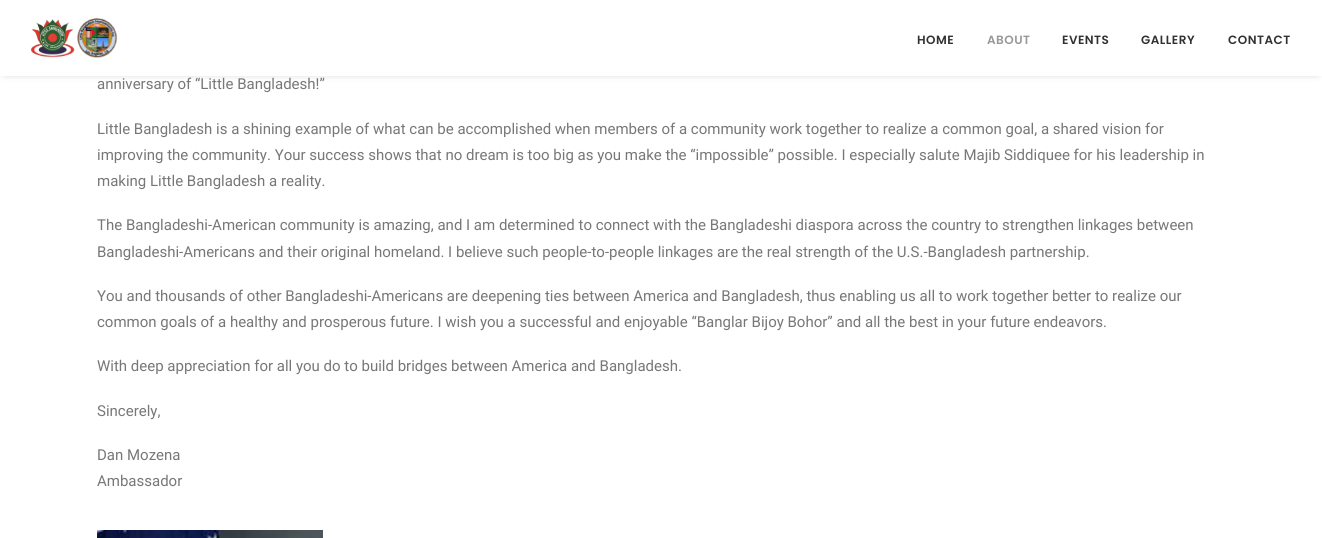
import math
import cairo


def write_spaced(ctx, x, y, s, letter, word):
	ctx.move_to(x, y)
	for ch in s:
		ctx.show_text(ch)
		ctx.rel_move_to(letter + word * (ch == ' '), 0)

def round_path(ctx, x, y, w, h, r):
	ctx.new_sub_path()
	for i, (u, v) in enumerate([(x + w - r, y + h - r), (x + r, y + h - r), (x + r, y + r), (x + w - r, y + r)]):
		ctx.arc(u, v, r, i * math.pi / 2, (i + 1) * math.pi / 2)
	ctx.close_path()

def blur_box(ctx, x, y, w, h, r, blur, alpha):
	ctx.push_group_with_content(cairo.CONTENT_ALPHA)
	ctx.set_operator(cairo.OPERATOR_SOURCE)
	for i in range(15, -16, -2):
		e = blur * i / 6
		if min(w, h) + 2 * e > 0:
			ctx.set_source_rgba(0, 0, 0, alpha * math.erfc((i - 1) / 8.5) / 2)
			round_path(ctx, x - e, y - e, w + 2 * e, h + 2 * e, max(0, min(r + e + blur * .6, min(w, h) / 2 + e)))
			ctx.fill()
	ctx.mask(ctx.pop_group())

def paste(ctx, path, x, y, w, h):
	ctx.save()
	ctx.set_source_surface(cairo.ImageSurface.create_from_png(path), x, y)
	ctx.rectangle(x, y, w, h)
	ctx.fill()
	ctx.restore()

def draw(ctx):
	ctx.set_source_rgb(1, 1, 1)
	ctx.paint()
	ctx.set_source_rgb(0, 0, 0)
	blur_box(ctx, 5, 14, 1312, 56, 0, 5, 0.6)
	ctx.set_source_rgb(1, 1, 1)
	ctx.rectangle(0, 3, 1322, 73)
	ctx.fill()
	paste(ctx, 'media/1.png', 31, 18, 87, 40)
	ctx.select_font_face('Poppins SemiBold')
	ctx.set_font_size(12)
	ctx.set_source_rgb(0.188, 0.192, 0.2)
	write_spaced(ctx, 917, 44, 'HOME', 0.5, 0)
	ctx.set_source_rgb(0.596, 0.596, 0.6)
	write_spaced(ctx, 987, 44, 'ABOUT', 0.5, 0)
	ctx.set_source_rgb(0.188, 0.192, 0.2)
	for x, y, s in [
		(1062, 44, 'EVENTS'),
		(1141, 44, 'GALLERY'),
		(1228, 44, 'CONTACT'),
	]:
		write_spaced(ctx, x, y, s, 0.5, 0)
	ctx.select_font_face('Roboto')
	ctx.set_font_size(15)
	ctx.set_source_rgb(0.467, 0.467, 0.467)
	for x, y, s in [
		(97, 89, 'anniversary of “Little Bangladesh!”'),
		(97, 134, 'Little Bangladesh is a shining example of what can be accomplished when members of a community work together to realize a common goal, a shared vision for'),
		(97, 160, 'improving the community. Your success shows that no dream is too big as you make the “impossible” possible. I especially salute Majib Siddiquee for his leadership in'),
		(97, 186, 'making Little Bangladesh a reality.'),
		(97, 230, 'The Bangladeshi-American community is amazing, and I am determined to connect with the Bangladeshi diaspora across the country to strengthen linkages between'),
		(97, 257, 'Bangladeshi-Americans and their original homeland. I believe such people-to-people linkages are the real strength of the U.S.-Bangladesh partnership.'),
		(97, 301, 'You and thousands of other Bangladeshi-Americans are deepening ties between America and Bangladesh, thus enabling us all to work together better to realize our'),
		(97, 327, 'common goals of a healthy and prosperous future. I wish you a successful and enjoyable “Banglar Bijoy Bohor” and all the best in your future endeavors.'),
		(97, 371, 'With deep appreciation for all you do to build bridges between America and Bangladesh.'),
		(97, 416, 'Sincerely,'),
		(97, 460, 'Dan Mozena'),
		(97, 486, 'Ambassador'),
	]:
		ctx.move_to(x, y)
		ctx.show_text(s)
	paste(ctx, 'media/2.png', 97, 530, 226, 8)


surface = cairo.ImageSurface(cairo.FORMAT_RGB24, 1322, 538)
ctx = cairo.Context(surface)
options = cairo.FontOptions()
options.set_hint_metrics(cairo.HINT_METRICS_OFF)
options.set_hint_style(cairo.HINT_STYLE_NONE)
ctx.set_font_options(options)
ctx.set_miter_limit(4)
draw(ctx)
surface.write_to_png('image.png')
